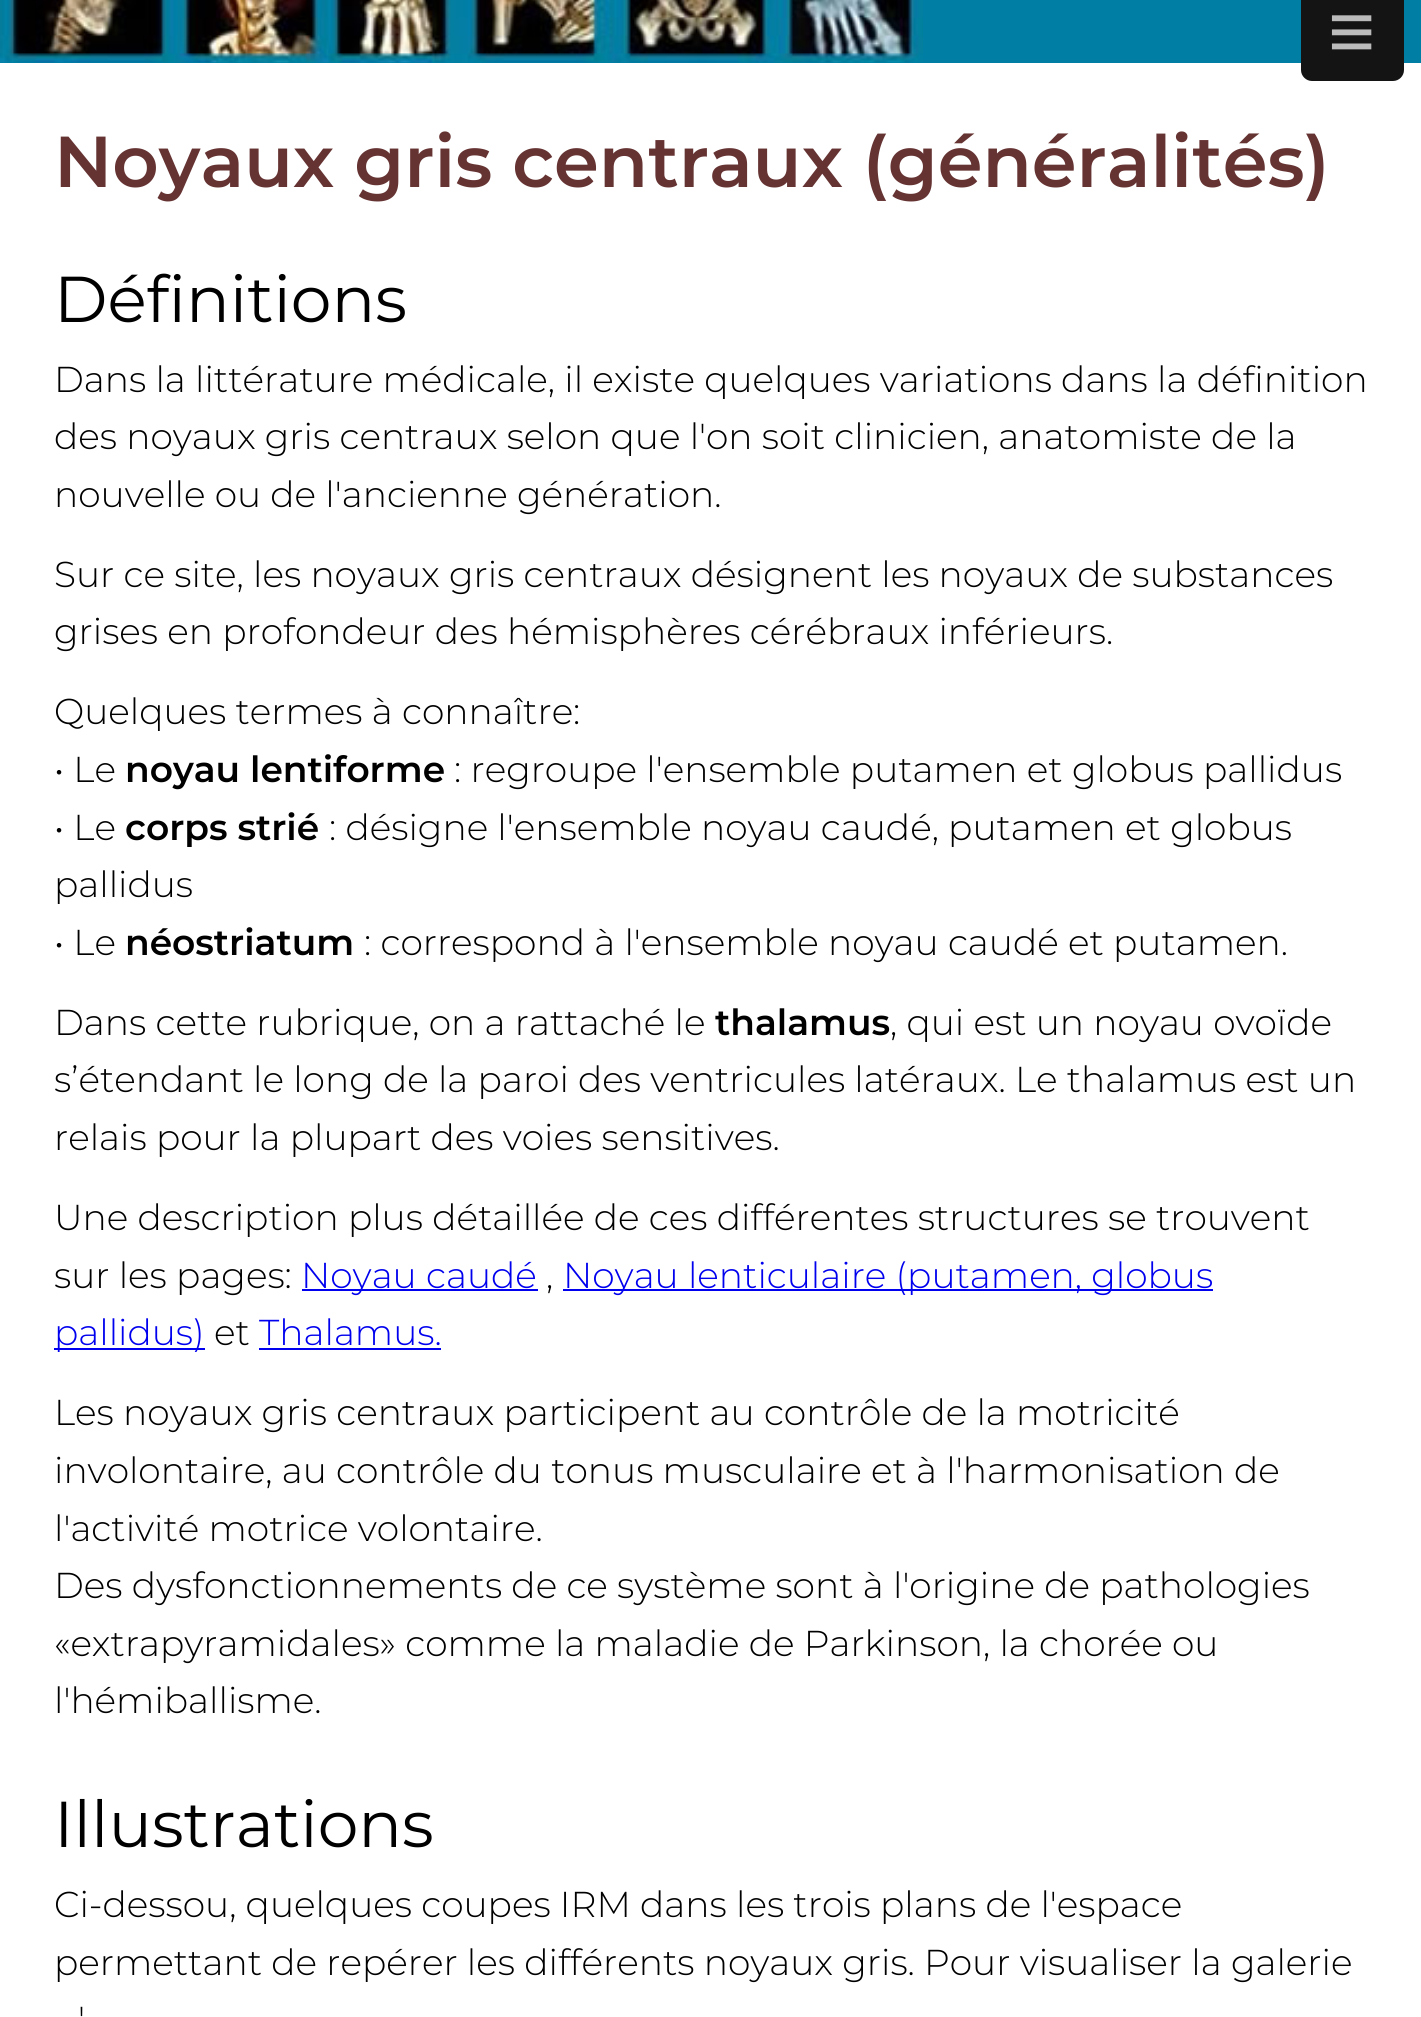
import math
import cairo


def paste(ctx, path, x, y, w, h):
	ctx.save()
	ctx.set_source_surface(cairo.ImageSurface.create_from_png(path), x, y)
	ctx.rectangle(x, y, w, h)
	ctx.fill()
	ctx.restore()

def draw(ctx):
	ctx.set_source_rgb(0, 0.494, 0.639)
	ctx.paint()
	paste(ctx, 'media/1.png', 0, 0, 923, 63)
	ctx.set_source_rgb(1, 1, 1)
	ctx.rectangle(0, 63, 1421, 1954)
	ctx.fill()
	ctx.set_source_rgb(0.082, 0.082, 0.082)
	ctx.new_path()
	ctx.move_to(1301, 0)
	ctx.line_to(1404, 0)
	ctx.line_to(1404, 70)
	ctx.curve_to(1404, 76, 1399, 81, 1393, 81)
	ctx.line_to(1312, 81)
	ctx.curve_to(1306, 81, 1301, 76, 1301, 70)
	ctx.close_path()
	ctx.fill()
	ctx.select_font_face('Liberation Sans')
	ctx.set_font_size(81)
	ctx.set_source_rgb(0.733, 0.733, 0.733)
	ctx.move_to(1328, 59)
	ctx.show_text('≡')
	ctx.select_font_face('Montserrat SemiBold')
	ctx.set_font_size(72)
	ctx.set_source_rgb(0.4, 0.2, 0.2)
	ctx.move_to(54, 187)
	ctx.show_text('Noyaux gris centraux (généralités)')
	ctx.select_font_face('Montserrat')
	ctx.set_font_size(64.75)
	ctx.set_source_rgb(0, 0, 0)
	ctx.move_to(54, 322)
	ctx.show_text('Définitions')
	ctx.select_font_face('Montserrat Light')
	ctx.set_font_size(36)
	for x, y, s in [
		(54, 392, 'Dans la littérature médicale, il existe quelques variations dans la définition'),
		(54, 449, 'des noyaux gris centraux selon que l\'on soit clinicien, anatomiste de la'),
		(54, 507, 'nouvelle ou de l\'ancienne génération.'),
		(54, 587, 'Sur ce site, les noyaux gris centraux désignent les noyaux de substances'),
		(54, 644, 'grises en profondeur des hémisphères cérébraux inférieurs.'),
		(54, 724, 'Quelques termes à connaître:'),
		(54, 782, '• Le'),
	]:
		ctx.move_to(x, y)
		ctx.show_text(s)
	ctx.select_font_face('Montserrat SemiBold')
	ctx.move_to(125, 782)
	ctx.show_text('noyau lentiforme')
	ctx.select_font_face('Montserrat Light')
	ctx.move_to(454, 782)
	ctx.show_text(': regroupe l\'ensemble putamen et globus pallidus')
	ctx.move_to(54, 840)
	ctx.show_text('• Le')
	ctx.select_font_face('Montserrat SemiBold')
	ctx.move_to(125, 840)
	ctx.show_text('corps strié')
	ctx.select_font_face('Montserrat Light')
	for x, y, s in [
		(329, 840, ': désigne l\'ensemble noyau caudé, putamen et globus'),
		(54, 897, 'pallidus'),
		(54, 955, '• Le'),
	]:
		ctx.move_to(x, y)
		ctx.show_text(s)
	ctx.select_font_face('Montserrat SemiBold')
	ctx.move_to(125, 955)
	ctx.show_text('néostriatum')
	ctx.select_font_face('Montserrat Light')
	ctx.move_to(364, 955)
	ctx.show_text(': correspond à l\'ensemble noyau caudé et putamen.')
	ctx.move_to(54, 1035)
	ctx.show_text('Dans cette rubrique, on a rattaché le')
	ctx.select_font_face('Montserrat SemiBold')
	ctx.move_to(715, 1035)
	ctx.show_text('thalamus')
	ctx.select_font_face('Montserrat Light')
	for x, y, s in [
		(890, 1035, ', qui est un noyau ovoïde'),
		(54, 1092, 's’étendant le long de la paroi des ventricules latéraux. Le thalamus est un'),
		(54, 1150, 'relais pour la plupart des voies sensitives.'),
		(54, 1230, 'Une description plus détaillée de ces différentes structures se trouvent'),
		(54, 1288, 'sur les pages:'),
	]:
		ctx.move_to(x, y)
		ctx.show_text(s)
	ctx.set_source_rgb(0, 0, 0.933)
	ctx.rectangle(302, 1289, 236, 2)
	ctx.fill()
	ctx.move_to(301, 1288)
	ctx.show_text('Noyau caudé')
	ctx.set_source_rgb(0, 0, 0)
	ctx.move_to(546, 1288)
	ctx.show_text(',')
	ctx.set_source_rgb(0, 0, 0.933)
	ctx.rectangle(563, 1289, 650, 2)
	ctx.fill()
	ctx.move_to(563, 1288)
	ctx.show_text('Noyau lenticulaire (putamen, globus')
	ctx.rectangle(54, 1348, 151, 2)
	ctx.fill()
	ctx.move_to(54, 1345)
	ctx.show_text('pallidus)')
	ctx.set_source_rgb(0, 0, 0)
	ctx.move_to(214, 1345)
	ctx.show_text('et')
	ctx.set_source_rgb(0, 0, 0.933)
	ctx.move_to(259, 1345)
	ctx.show_text('Thalamus.')
	ctx.rectangle(259, 1348, 182, 2)
	ctx.fill()
	ctx.set_source_rgb(0, 0, 0)
	for x, y, s in [
		(54, 1425, 'Les noyaux gris centraux participent au contrôle de la motricité'),
		(54, 1483, 'involontaire, au contrôle du tonus musculaire et à l\'harmonisation de'),
		(54, 1541, 'l\'activité motrice volontaire.'),
		(54, 1598, 'Des dysfonctionnements de ce système sont à l\'origine de pathologies'),
		(54, 1656, '«extrapyramidales» comme la maladie de Parkinson, la chorée ou'),
		(54, 1713, 'l\'hémiballisme.'),
	]:
		ctx.move_to(x, y)
		ctx.show_text(s)
	ctx.select_font_face('Montserrat')
	ctx.set_font_size(64.75)
	ctx.move_to(54, 1847)
	ctx.show_text('Illustrations')
	ctx.select_font_face('Montserrat Light')
	ctx.set_font_size(36)
	for x, y, s in [
		(54, 1917, 'Ci-dessou, quelques coupes IRM dans les trois plans de l\'espace'),
		(54, 1975, 'permettant de repérer les différents noyaux gris. Pour visualiser la galerie'),
		(78, 2032, '\''),
	]:
		ctx.move_to(x, y)
		ctx.show_text(s)


surface = cairo.ImageSurface(cairo.FORMAT_RGB24, 1421, 2017)
ctx = cairo.Context(surface)
options = cairo.FontOptions()
options.set_hint_metrics(cairo.HINT_METRICS_OFF)
options.set_hint_style(cairo.HINT_STYLE_NONE)
ctx.set_font_options(options)
ctx.set_miter_limit(4)
draw(ctx)
surface.write_to_png('image.png')
